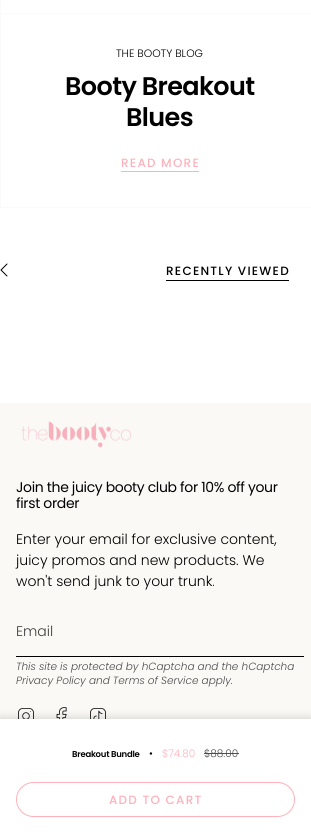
import math
import cairo


def write_spaced(ctx, x, y, s, letter, word):
	ctx.move_to(x, y)
	for ch in s:
		ctx.show_text(ch)
		ctx.rel_move_to(letter + word * (ch == ' '), 0)

def round_path(ctx, x, y, w, h, r):
	ctx.new_sub_path()
	for i, (u, v) in enumerate([(x + w - r, y + h - r), (x + r, y + h - r), (x + r, y + r), (x + w - r, y + r)]):
		ctx.arc(u, v, r, i * math.pi / 2, (i + 1) * math.pi / 2)
	ctx.close_path()

def blur_box(ctx, x, y, w, h, r, blur, alpha):
	ctx.push_group_with_content(cairo.CONTENT_ALPHA)
	ctx.set_operator(cairo.OPERATOR_SOURCE)
	for i in range(15, -16, -2):
		e = blur * i / 6
		if min(w, h) + 2 * e > 0:
			ctx.set_source_rgba(0, 0, 0, alpha * math.erfc((i - 1) / 8.5) / 2)
			round_path(ctx, x - e, y - e, w + 2 * e, h + 2 * e, max(0, min(r + e + blur * .6, min(w, h) / 2 + e)))
			ctx.fill()
	ctx.mask(ctx.pop_group())

def paste(ctx, path, x, y, w, h):
	ctx.save()
	ctx.set_source_surface(cairo.ImageSurface.create_from_png(path), x, y)
	ctx.rectangle(x, y, w, h)
	ctx.fill()
	ctx.restore()

def draw(ctx):
	ctx.set_source_rgb(1, 1, 1)
	ctx.paint()
	ctx.rectangle(0.5, -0.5, 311, 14)
	ctx.set_source_rgb(0.98, 0.98, 0.98)
	ctx.set_line_width(1)
	ctx.stroke()
	ctx.rectangle(0, 207, 311, 1)
	ctx.fill()
	ctx.rectangle(0, 14, 1, 194)
	ctx.fill()
	ctx.select_font_face('Poppins Light')
	ctx.set_font_size(10.75)
	ctx.set_source_rgb(0, 0, 0)
	ctx.move_to(116, 57)
	ctx.show_text('THE BOOTY BLOG')
	ctx.select_font_face('Poppins SemiBold')
	ctx.set_font_size(25.5)
	write_spaced(ctx, 65, 95, 'Booty Breakout', -0.6, 0)
	write_spaced(ctx, 126, 126, 'Blues', -0.6, 0)
	ctx.select_font_face('Poppins Medium')
	ctx.set_font_size(12)
	ctx.set_source_rgb(1, 0.694, 0.733)
	write_spaced(ctx, 121, 167, 'READ MORE', 1.25, 0)
	ctx.rectangle(121, 171, 78, 1)
	ctx.fill()
	ctx.new_path()
	ctx.move_to(7, 264)
	ctx.line_to(1, 270)
	ctx.line_to(7, 276)
	ctx.set_source_rgb(0, 0, 0)
	ctx.set_line_cap(cairo.LINE_CAP_ROUND)
	ctx.set_line_join(cairo.LINE_JOIN_ROUND)
	ctx.stroke()
	write_spaced(ctx, 166, 275, 'RECENTLY VIEWED', 1.25, 0)
	ctx.rectangle(166, 280, 123, 1)
	ctx.fill()
	ctx.set_source_rgb(0.98, 0.973, 0.961)
	ctx.rectangle(0, 403, 311, 316)
	ctx.fill()
	paste(ctx, 'media/2.png', 18, 708, 16, 11)
	paste(ctx, 'media/3.png', 56, 707, 11, 12)
	paste(ctx, 'media/4.png', 90, 708, 16, 11)
	ctx.set_source_rgb(0, 0, 0)
	blur_box(ctx, 0, 719, 311, 120, 0, 5, 0.2)
	ctx.set_source_rgb(1, 1, 1)
	ctx.rectangle(0, 719, 311, 120)
	ctx.fill()
	ctx.select_font_face('Poppins SemiBold')
	ctx.set_font_size(8.5)
	ctx.set_source_rgb(0, 0, 0)
	write_spaced(ctx, 72, 757, 'Breakout Bundle', -0.25, 0)
	ctx.select_font_face('Poppins Light')
	ctx.set_font_size(10.5)
	ctx.move_to(149, 757)
	ctx.show_text('•')
	ctx.set_source_rgb(1, 0.694, 0.733)
	ctx.move_to(162, 757)
	ctx.show_text('$74.80')
	ctx.set_source_rgb(0.294, 0.29, 0.29)
	ctx.move_to(204, 757)
	ctx.show_text('$88.00')
	ctx.set_source_rgb(0.302, 0.302, 0.302)
	ctx.rectangle(204, 753, 35, 1)
	ctx.fill()
	round_path(ctx, 16.5, 782.5, 278, 34, 17)
	ctx.set_source_rgb(1, 0.694, 0.733)
	ctx.set_line_cap(cairo.LINE_CAP_BUTT)
	ctx.set_line_join(cairo.LINE_JOIN_MITER)
	ctx.stroke()
	ctx.select_font_face('Poppins Medium')
	ctx.set_font_size(12)
	write_spaced(ctx, 109, 804, 'ADD TO CART', 1.25, 0)
	paste(ctx, 'media/1.png', 21, 421, 111, 27)
	ctx.select_font_face('Poppins')
	ctx.set_font_size(14)
	ctx.set_source_rgb(0, 0, 0)
	write_spaced(ctx, 16, 492, 'Join the juicy booty club for 10% off your', -0.35, 0)
	write_spaced(ctx, 16, 508, 'first order', -0.35, 0)
	ctx.select_font_face('Poppins Light')
	for x, y, s in [
		(16, 544, 'Enter your email for exclusive content,'),
		(16, 565, 'juicy promos and new products. We'),
		(16, 586, 'won\'t send junk to your trunk.'),
	]:
		ctx.move_to(x, y)
		ctx.show_text(s)
	ctx.rectangle(16, 656, 288, 1)
	ctx.fill()
	ctx.set_source_rgb(0.247, 0.243, 0.239)
	ctx.move_to(16, 636)
	ctx.show_text('Email')
	ctx.select_font_face('Poppins Light', cairo.FONT_SLANT_ITALIC)
	ctx.set_font_size(10.5)
	ctx.set_source_rgb(0.294, 0.29, 0.29)
	ctx.move_to(16, 670)
	ctx.show_text('This site is protected by hCaptcha and the hCaptcha')
	ctx.move_to(16, 684)
	ctx.show_text('Privacy Policy and Terms of Service apply.')


surface = cairo.ImageSurface(cairo.FORMAT_RGB24, 311, 839)
ctx = cairo.Context(surface)
options = cairo.FontOptions()
options.set_hint_metrics(cairo.HINT_METRICS_OFF)
options.set_hint_style(cairo.HINT_STYLE_NONE)
ctx.set_font_options(options)
ctx.set_miter_limit(4)
draw(ctx)
surface.write_to_png('image.png')
